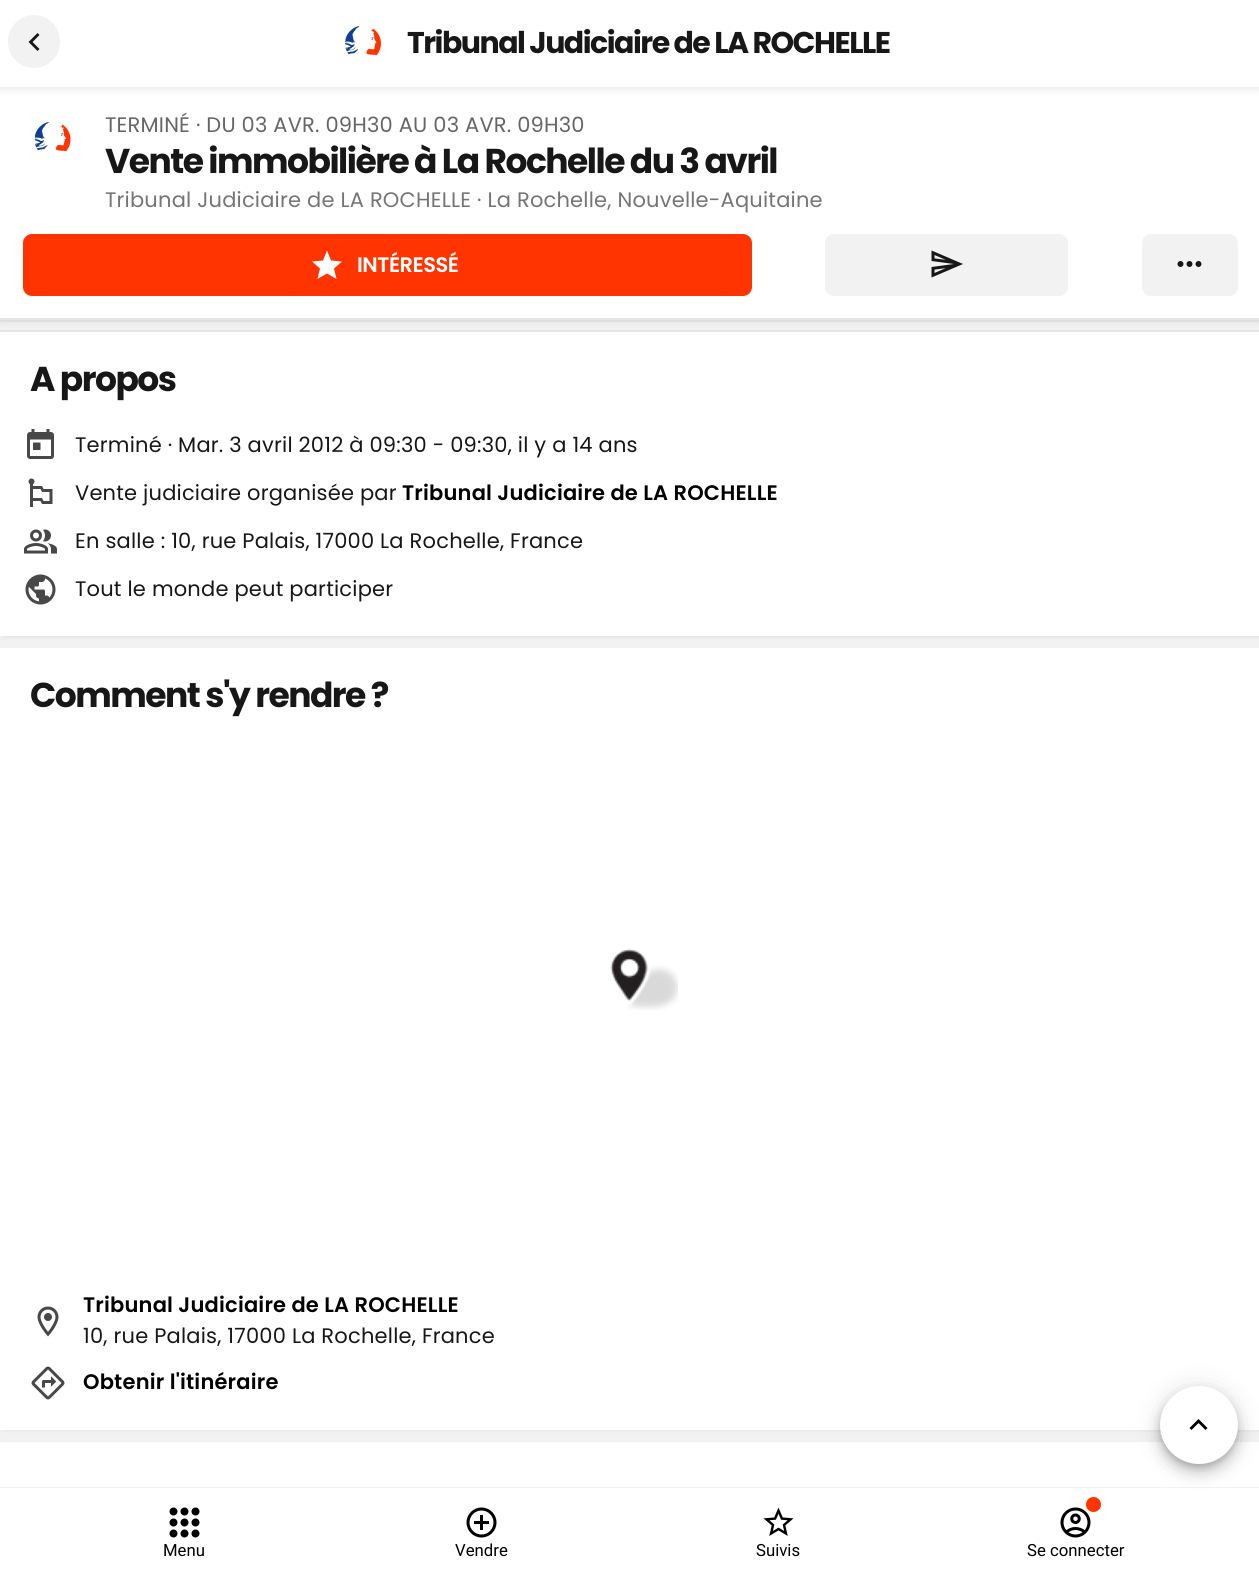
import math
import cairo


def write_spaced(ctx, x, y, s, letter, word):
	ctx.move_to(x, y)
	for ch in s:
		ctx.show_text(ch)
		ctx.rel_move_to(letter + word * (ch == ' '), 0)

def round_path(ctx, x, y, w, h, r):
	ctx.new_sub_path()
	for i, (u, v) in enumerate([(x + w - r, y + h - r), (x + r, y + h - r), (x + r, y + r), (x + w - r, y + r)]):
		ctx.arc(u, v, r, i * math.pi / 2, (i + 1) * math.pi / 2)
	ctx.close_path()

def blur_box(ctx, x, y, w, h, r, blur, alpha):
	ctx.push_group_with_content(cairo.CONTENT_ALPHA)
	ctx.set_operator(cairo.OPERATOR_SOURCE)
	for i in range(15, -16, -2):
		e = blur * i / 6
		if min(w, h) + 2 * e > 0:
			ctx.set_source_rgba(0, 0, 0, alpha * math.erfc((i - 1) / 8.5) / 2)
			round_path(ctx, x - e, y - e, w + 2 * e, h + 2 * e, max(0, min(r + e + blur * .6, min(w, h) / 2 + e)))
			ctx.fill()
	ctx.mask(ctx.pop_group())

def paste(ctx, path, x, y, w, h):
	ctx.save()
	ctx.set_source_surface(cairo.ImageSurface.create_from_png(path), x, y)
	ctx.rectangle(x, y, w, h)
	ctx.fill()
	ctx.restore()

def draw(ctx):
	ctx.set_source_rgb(0.949, 0.949, 0.949)
	ctx.paint()
	ctx.set_source_rgb(0.914, 0.914, 0.914)
	ctx.rectangle(0, 320, 1259, 2)
	ctx.fill()
	ctx.set_source_rgb(0, 0, 0)
	blur_box(ctx, 2, 333, 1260, 305, 0, 1.5, 0.05)
	ctx.set_source_rgb(0.898, 0.898, 0.898)
	ctx.rectangle(0, 330, 1259, 2)
	ctx.fill()
	ctx.set_source_rgb(1, 1, 1)
	ctx.rectangle(0, 332, 1259, 304)
	ctx.fill()
	ctx.set_source_rgb(0, 0, 0)
	blur_box(ctx, 0, 89, 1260, 232, 0, 4, 0.1)
	ctx.set_source_rgb(1, 1, 1)
	ctx.rectangle(0, 87, 1259, 231)
	ctx.fill()
	ctx.set_source_rgb(0, 0, 0)
	blur_box(ctx, 0, 2, 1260, 87, 0, 4, 0.1)
	ctx.set_source_rgb(1, 1, 1)
	ctx.rectangle(0, 0, 1259, 87)
	ctx.fill()
	ctx.set_source_rgb(0.949, 0.949, 0.949)
	round_path(ctx, 8, 15, 52, 53, 26)
	ctx.fill()
	ctx.set_source_rgb(0.09, 0.09, 0.09)
	ctx.new_path()
	ctx.move_to(39.5, 35)
	ctx.line_to(37.5, 33)
	ctx.line_to(28.5, 42)
	ctx.line_to(37.5, 51)
	ctx.line_to(39.5, 49)
	ctx.line_to(32.5, 42)
	ctx.close_path()
	ctx.fill()
	paste(ctx, 'media/1.png', 345, 26, 36, 30)
	ctx.select_font_face('Poppins', cairo.FONT_SLANT_NORMAL, cairo.FONT_WEIGHT_BOLD)
	ctx.set_font_size(30)
	write_spaced(ctx, 407, 53, 'Tribunal Judiciaire de LA ROCHELLE', -1.5, 0)
	ctx.set_source_rgb(0.898, 0.898, 0.898)
	ctx.rectangle(0, 318, 1259, 2)
	ctx.fill()
	paste(ctx, 'media/2.png', 35, 122, 36, 30)
	ctx.select_font_face('Poppins')
	ctx.set_font_size(21)
	ctx.set_source_rgb(0.4, 0.4, 0.4)
	write_spaced(ctx, 105, 132, 'TERMINÉ · DU 03 AVR. 09H30 AU 03 AVR. 09H30', 0.2, 0)
	ctx.select_font_face('Poppins', cairo.FONT_SLANT_NORMAL, cairo.FONT_WEIGHT_BOLD)
	ctx.set_font_size(34.5)
	ctx.set_source_rgb(0.09, 0.09, 0.09)
	write_spaced(ctx, 105, 173, 'Vente immobilière à La Rochelle du 3 avril', -1.5, 0)
	ctx.select_font_face('Poppins')
	ctx.set_font_size(21)
	ctx.set_source_rgb(0.459, 0.459, 0.459)
	write_spaced(ctx, 105, 207, 'Tribunal Judiciaire de LA ROCHELLE · La Rochelle, Nouvelle-Aquitaine', 0.2, 0)
	ctx.set_source_rgb(1, 0.204, 0)
	round_path(ctx, 23, 234, 729, 62, 9)
	ctx.fill()
	ctx.set_source_rgb(1, 1, 1)
	ctx.new_path()
	ctx.move_to(327, 273.5)
	ctx.line_to(336.5, 279)
	ctx.line_to(334, 268.5)
	ctx.line_to(342, 261.5)
	ctx.line_to(331, 260.5)
	ctx.line_to(327, 250.5)
	ctx.line_to(323, 260.5)
	ctx.line_to(312, 261.5)
	ctx.line_to(320, 268.5)
	ctx.line_to(317.5, 279)
	ctx.close_path()
	ctx.fill()
	ctx.select_font_face('Poppins SemiBold')
	write_spaced(ctx, 357, 272, 'INTÉRESSÉ', -0.5, 0)
	ctx.set_source_rgb(0.949, 0.949, 0.949)
	round_path(ctx, 825, 234, 243, 62, 9)
	ctx.fill()
	paste(ctx, 'media/3.png', 931, 250, 32, 28)
	round_path(ctx, 1142, 234, 96, 62, 9)
	ctx.fill()
	paste(ctx, 'media/4.png', 1177, 261, 25, 6)
	ctx.select_font_face('Poppins', cairo.FONT_SLANT_NORMAL, cairo.FONT_WEIGHT_BOLD)
	ctx.set_font_size(34.5)
	ctx.set_source_rgb(0.09, 0.09, 0.09)
	write_spaced(ctx, 30, 391, 'A propos', -1.5, 0)
	paste(ctx, 'media/5.png', 27, 429, 27, 30)
	ctx.select_font_face('Poppins')
	ctx.set_font_size(21)
	write_spaced(ctx, 75, 452, 'Terminé · Mar. 3 avril 2012 à 09:30 - 09:30, il y a 14 ans', 0.2, 0)
	paste(ctx, 'media/6.png', 28, 478, 25, 29)
	write_spaced(ctx, 75, 500, 'Vente judiciaire organisée par', 0.2, 0)
	ctx.select_font_face('Poppins SemiBold')
	ctx.set_source_rgb(0, 0, 0)
	write_spaced(ctx, 402, 500, 'Tribunal Judiciaire de LA ROCHELLE', 0.2, 0)
	paste(ctx, 'media/7.png', 24, 529, 33, 25)
	ctx.select_font_face('Poppins')
	ctx.set_source_rgb(0.09, 0.09, 0.09)
	write_spaced(ctx, 75, 548, 'En salle : 10, rue Palais, 17000 La Rochelle, France', 0.2, 0)
	paste(ctx, 'media/8.png', 25, 574, 31, 31)
	write_spaced(ctx, 75, 596, 'Tout le monde peut participer', 0.2, 0)
	ctx.set_source_rgb(0, 0, 0)
	blur_box(ctx, 2, 650, 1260, 781, 0, 1.5, 0.05)
	ctx.set_source_rgb(1, 1, 1)
	ctx.rectangle(0, 648, 1259, 782)
	ctx.fill()
	ctx.select_font_face('Poppins', cairo.FONT_SLANT_NORMAL, cairo.FONT_WEIGHT_BOLD)
	ctx.set_font_size(34.5)
	ctx.set_source_rgb(0.09, 0.09, 0.09)
	write_spaced(ctx, 30, 707, 'Comment s\'y rendre ?', -1.5, 0)
	paste(ctx, 'media/9.png', 610, 948, 68, 62)
	paste(ctx, 'media/10.png', 37, 1306, 22, 31)
	ctx.select_font_face('Poppins SemiBold')
	ctx.set_font_size(21)
	ctx.set_source_rgb(0, 0, 0)
	write_spaced(ctx, 83, 1312, 'Tribunal Judiciaire de LA ROCHELLE', 0.2, 0)
	ctx.select_font_face('Poppins')
	ctx.set_source_rgb(0.09, 0.09, 0.09)
	write_spaced(ctx, 83, 1343, '10, rue Palais, 17000 La Rochelle, France', 0.2, 0)
	paste(ctx, 'media/11.png', 31, 1366, 34, 34)
	ctx.select_font_face('Poppins SemiBold')
	ctx.set_source_rgb(0, 0, 0)
	write_spaced(ctx, 83, 1389, 'Obtenir l\'itinéraire', 0.2, 0)
	ctx.set_source_rgb(1, 1, 1)
	ctx.rectangle(0, 1442, 1259, 45)
	ctx.fill()
	ctx.rectangle(0, 1488, 1259, 83)
	ctx.fill()
	ctx.set_source_rgb(0, 0, 0)
	blur_box(ctx, 1160, 1388, 78, 78, 39, 13.5, 0.12)
	blur_box(ctx, 1160, 1395, 78, 78, 39, 7.5, 0.14)
	blur_box(ctx, 1161, 1392, 75, 75, 37.5, 4, 0.2)
	ctx.set_source_rgb(1, 1, 1)
	ctx.arc(1199, 1425, 39, 0, 2 * math.pi)
	ctx.fill()
	ctx.set_source_rgb(0, 0, 0)
	ctx.new_path()
	ctx.move_to(1191.5, 1430)
	ctx.line_to(1198.5, 1423)
	ctx.line_to(1205.5, 1430)
	ctx.line_to(1207.5, 1428)
	ctx.line_to(1198.5, 1419)
	ctx.line_to(1189.5, 1428)
	ctx.close_path()
	ctx.fill()
	paste(ctx, 'media/12.png', 169, 1507, 31, 31)
	ctx.select_font_face('Roboto')
	ctx.set_font_size(16.75)
	ctx.move_to(163, 1556)
	ctx.show_text('Menu')
	paste(ctx, 'media/13.png', 466, 1507, 31, 31)
	ctx.move_to(455, 1556)
	ctx.show_text('Vendre')
	paste(ctx, 'media/14.png', 763, 1507, 31, 29)
	ctx.move_to(756, 1556)
	ctx.show_text('Suivis')
	paste(ctx, 'media/15.png', 1060, 1507, 31, 31)
	ctx.set_source_rgb(1, 0.204, 0.004)
	ctx.arc(1093.5, 1504.5, 7.5, 0, 2 * math.pi)
	ctx.fill()
	ctx.set_source_rgb(0, 0, 0)
	ctx.move_to(1027, 1556)
	ctx.show_text('Se connecter')


surface = cairo.ImageSurface(cairo.FORMAT_RGB24, 1259, 1571)
ctx = cairo.Context(surface)
options = cairo.FontOptions()
options.set_hint_metrics(cairo.HINT_METRICS_OFF)
options.set_hint_style(cairo.HINT_STYLE_NONE)
ctx.set_font_options(options)
ctx.set_miter_limit(4)
draw(ctx)
surface.write_to_png('image.png')
